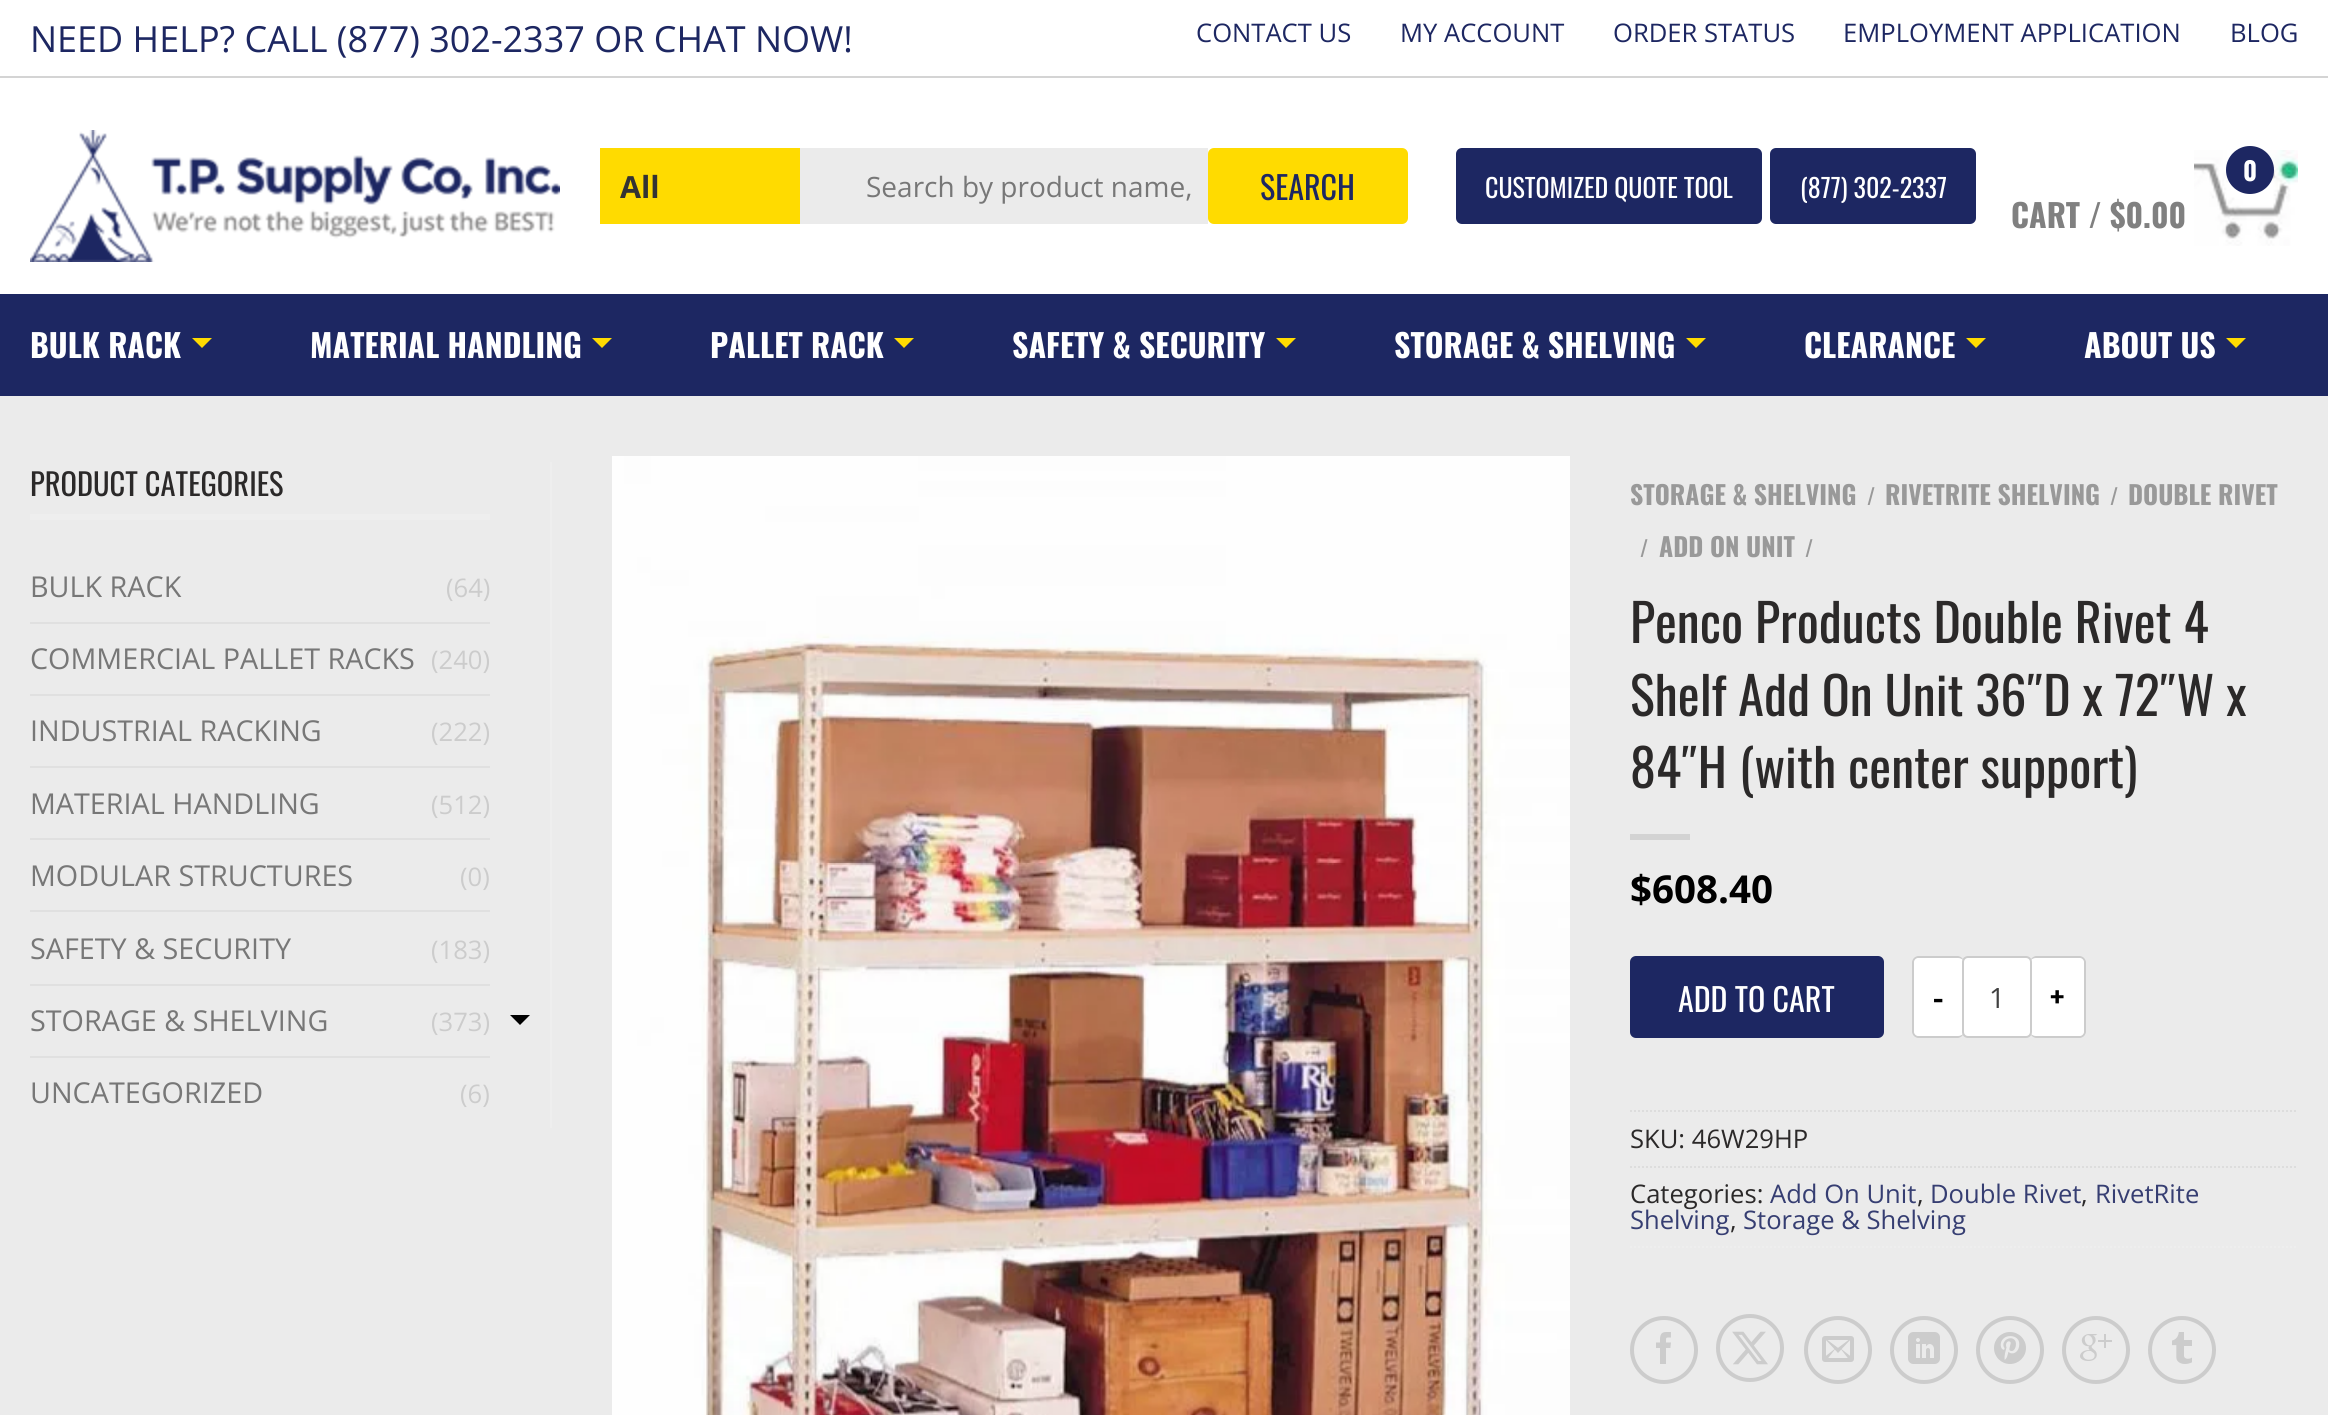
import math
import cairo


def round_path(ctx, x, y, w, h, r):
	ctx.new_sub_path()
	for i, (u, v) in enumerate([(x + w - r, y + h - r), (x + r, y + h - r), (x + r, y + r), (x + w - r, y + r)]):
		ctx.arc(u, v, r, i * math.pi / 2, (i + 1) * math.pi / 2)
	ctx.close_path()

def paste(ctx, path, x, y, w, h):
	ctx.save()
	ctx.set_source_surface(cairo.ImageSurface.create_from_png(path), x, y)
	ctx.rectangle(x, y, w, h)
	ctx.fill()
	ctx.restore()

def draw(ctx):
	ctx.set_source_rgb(0.918, 0.918, 0.918)
	ctx.paint()
	ctx.set_source_rgb(1, 1, 1)
	ctx.rectangle(0, 0, 2328, 294)
	ctx.fill()
	ctx.set_source_rgb(0.831, 0.831, 0.831)
	ctx.rectangle(0, 76, 2328, 2)
	ctx.fill()
	ctx.select_font_face('Open Sans')
	ctx.set_font_size(36)
	ctx.set_source_rgb(0.114, 0.153, 0.384)
	ctx.move_to(30, 52)
	ctx.show_text('NEED HELP? CALL (877) 302-2337 OR CHAT NOW!')
	ctx.set_font_size(25.6)
	for x, y, s in [
		(1196, 42, 'CONTACT US'),
		(1400, 42, 'MY ACCOUNT'),
		(1613, 42, 'ORDER STATUS'),
		(1843, 42, 'EMPLOYMENT APPLICATION'),
		(2230, 42, 'BLOG'),
	]:
		ctx.move_to(x, y)
		ctx.show_text(s)
	paste(ctx, 'media/1.png', 30, 130, 530, 132)
	ctx.set_source_rgb(1, 0.859, 0)
	ctx.rectangle(600, 148, 200, 76)
	ctx.fill()
	ctx.select_font_face('Open Sans', cairo.FONT_SLANT_NORMAL, cairo.FONT_WEIGHT_BOLD)
	ctx.set_font_size(30.5)
	ctx.set_source_rgb(0.2, 0.2, 0.2)
	ctx.move_to(620, 198)
	ctx.show_text('All')
	ctx.set_source_rgb(0.918, 0.918, 0.918)
	ctx.rectangle(800, 148, 408, 76)
	ctx.fill()
	ctx.select_font_face('Open Sans')
	ctx.set_font_size(28)
	ctx.set_source_rgb(0.467, 0.467, 0.467)
	ctx.move_to(866, 197)
	ctx.show_text('Search by product name,')
	ctx.set_source_rgb(1, 0.859, 0)
	round_path(ctx, 1208, 148, 200, 76, 6)
	ctx.fill()
	ctx.select_font_face('Oswald')
	ctx.set_font_size(32)
	ctx.set_source_rgb(0.114, 0.153, 0.384)
	ctx.move_to(1260, 200)
	ctx.show_text('SEARCH')
	round_path(ctx, 1456, 148, 306, 76, 6)
	ctx.fill()
	ctx.set_font_size(26)
	ctx.set_source_rgb(1, 1, 1)
	ctx.move_to(1485, 198)
	ctx.show_text('CUSTOMIZED QUOTE TOOL')
	ctx.set_source_rgb(0.114, 0.153, 0.384)
	round_path(ctx, 1770, 148, 206, 76, 6)
	ctx.fill()
	ctx.set_source_rgb(1, 1, 1)
	ctx.move_to(1800, 198)
	ctx.show_text('(877) 302-2337')
	paste(ctx, 'media/2.png', 2194, 150, 104, 96)
	ctx.set_source_rgb(0.114, 0.153, 0.384)
	ctx.arc(2250, 170, 24, 0, 2 * math.pi)
	ctx.fill()
	ctx.select_font_face('Oswald', cairo.FONT_SLANT_NORMAL, cairo.FONT_WEIGHT_BOLD)
	ctx.set_font_size(25.6)
	ctx.set_source_rgb(1, 1, 1)
	ctx.move_to(2243, 181)
	ctx.show_text('0')
	ctx.set_font_size(32)
	ctx.set_source_rgb(0.502, 0.502, 0.502)
	ctx.move_to(2011, 228)
	ctx.show_text('CART / $0.00')
	ctx.set_source_rgb(0.114, 0.153, 0.384)
	ctx.rectangle(0, 294, 2328, 102)
	ctx.fill()
	ctx.set_source_rgb(1, 1, 1)
	ctx.move_to(30, 358)
	ctx.show_text('BULK RACK')
	ctx.set_source_rgb(1, 0.859, 0)
	ctx.new_path()
	ctx.move_to(192, 338)
	ctx.line_to(212, 338)
	ctx.line_to(202, 348)
	ctx.close_path()
	ctx.fill()
	ctx.set_source_rgb(1, 1, 1)
	ctx.move_to(310, 358)
	ctx.show_text('MATERIAL HANDLING')
	ctx.set_source_rgb(1, 0.859, 0)
	ctx.new_path()
	ctx.move_to(592, 338)
	ctx.line_to(612, 338)
	ctx.line_to(602, 348)
	ctx.close_path()
	ctx.fill()
	ctx.set_source_rgb(1, 1, 1)
	ctx.move_to(710, 358)
	ctx.show_text('PALLET RACK')
	ctx.set_source_rgb(1, 0.859, 0)
	ctx.new_path()
	ctx.move_to(894, 338)
	ctx.line_to(914, 338)
	ctx.line_to(904, 348)
	ctx.close_path()
	ctx.fill()
	ctx.set_source_rgb(1, 1, 1)
	ctx.move_to(1012, 358)
	ctx.show_text('SAFETY & SECURITY')
	ctx.set_source_rgb(1, 0.859, 0)
	ctx.new_path()
	ctx.move_to(1276, 338)
	ctx.line_to(1296, 338)
	ctx.line_to(1286, 348)
	ctx.close_path()
	ctx.fill()
	ctx.set_source_rgb(1, 1, 1)
	ctx.move_to(1394, 358)
	ctx.show_text('STORAGE & SHELVING')
	ctx.set_source_rgb(1, 0.859, 0)
	ctx.new_path()
	ctx.move_to(1686, 338)
	ctx.line_to(1706, 338)
	ctx.line_to(1696, 348)
	ctx.close_path()
	ctx.fill()
	ctx.set_source_rgb(1, 1, 1)
	ctx.move_to(1804, 358)
	ctx.show_text('CLEARANCE')
	ctx.set_source_rgb(1, 0.859, 0)
	ctx.new_path()
	ctx.move_to(1966, 338)
	ctx.line_to(1986, 338)
	ctx.line_to(1976, 348)
	ctx.close_path()
	ctx.fill()
	ctx.set_source_rgb(1, 1, 1)
	ctx.move_to(2084, 358)
	ctx.show_text('ABOUT US')
	ctx.set_source_rgb(1, 0.859, 0)
	ctx.new_path()
	ctx.move_to(2226, 338)
	ctx.line_to(2246, 338)
	ctx.line_to(2236, 348)
	ctx.close_path()
	ctx.fill()
	ctx.set_source_rgb(0.933, 0.933, 0.933)
	ctx.rectangle(550, 462, 2, 666)
	ctx.fill()
	ctx.rectangle(30, 514, 460, 6)
	ctx.fill()
	ctx.select_font_face('Oswald')
	ctx.set_font_size(30.5)
	ctx.set_source_rgb(0.169, 0.161, 0.161)
	ctx.move_to(30, 496)
	ctx.show_text('PRODUCT CATEGORIES')
	ctx.set_source_rgb(0.878, 0.878, 0.878)
	ctx.rectangle(30, 622, 460, 2)
	ctx.fill()
	ctx.select_font_face('Open Sans')
	ctx.set_font_size(28.75)
	ctx.set_source_rgb(0.467, 0.467, 0.467)
	ctx.move_to(30, 597)
	ctx.show_text('BULK RACK')
	ctx.set_font_size(25.6)
	ctx.set_source_rgb(0.8, 0.8, 0.8)
	ctx.move_to(446, 597)
	ctx.show_text('(64)')
	ctx.set_source_rgb(0.878, 0.878, 0.878)
	ctx.rectangle(30, 694, 460, 2)
	ctx.fill()
	ctx.set_font_size(28.75)
	ctx.set_source_rgb(0.467, 0.467, 0.467)
	ctx.move_to(30, 669)
	ctx.show_text('COMMERCIAL PALLET RACKS')
	ctx.set_font_size(25.6)
	ctx.set_source_rgb(0.8, 0.8, 0.8)
	ctx.move_to(431, 669)
	ctx.show_text('(240)')
	ctx.set_source_rgb(0.878, 0.878, 0.878)
	ctx.rectangle(30, 766, 460, 2)
	ctx.fill()
	ctx.set_font_size(28.75)
	ctx.set_source_rgb(0.467, 0.467, 0.467)
	ctx.move_to(30, 741)
	ctx.show_text('INDUSTRIAL RACKING')
	ctx.set_font_size(25.6)
	ctx.set_source_rgb(0.8, 0.8, 0.8)
	ctx.move_to(431, 741)
	ctx.show_text('(222)')
	ctx.set_source_rgb(0.878, 0.878, 0.878)
	ctx.rectangle(30, 838, 460, 2)
	ctx.fill()
	ctx.set_font_size(28.75)
	ctx.set_source_rgb(0.467, 0.467, 0.467)
	ctx.move_to(30, 814)
	ctx.show_text('MATERIAL HANDLING')
	ctx.set_font_size(25.6)
	ctx.set_source_rgb(0.8, 0.8, 0.8)
	ctx.move_to(431, 814)
	ctx.show_text('(512)')
	ctx.set_source_rgb(0.878, 0.878, 0.878)
	ctx.rectangle(30, 910, 460, 2)
	ctx.fill()
	ctx.set_font_size(28.75)
	ctx.set_source_rgb(0.467, 0.467, 0.467)
	ctx.move_to(30, 886)
	ctx.show_text('MODULAR STRUCTURES')
	ctx.set_font_size(25.6)
	ctx.set_source_rgb(0.8, 0.8, 0.8)
	ctx.move_to(460, 886)
	ctx.show_text('(0)')
	ctx.set_source_rgb(0.878, 0.878, 0.878)
	ctx.rectangle(30, 984, 460, 2)
	ctx.fill()
	ctx.set_font_size(28.75)
	ctx.set_source_rgb(0.467, 0.467, 0.467)
	ctx.move_to(30, 959)
	ctx.show_text('SAFETY & SECURITY')
	ctx.set_font_size(25.6)
	ctx.set_source_rgb(0.8, 0.8, 0.8)
	ctx.move_to(431, 959)
	ctx.show_text('(183)')
	ctx.set_source_rgb(0.878, 0.878, 0.878)
	ctx.rectangle(30, 1056, 460, 2)
	ctx.fill()
	ctx.set_font_size(28.75)
	ctx.set_source_rgb(0.467, 0.467, 0.467)
	ctx.move_to(30, 1031)
	ctx.show_text('STORAGE & SHELVING')
	ctx.set_font_size(25.6)
	ctx.set_source_rgb(0.8, 0.8, 0.8)
	ctx.move_to(431, 1031)
	ctx.show_text('(373)')
	ctx.set_source_rgb(0, 0, 0)
	ctx.new_path()
	ctx.move_to(510, 1015)
	ctx.line_to(530, 1015)
	ctx.line_to(520, 1025)
	ctx.close_path()
	ctx.fill()
	ctx.set_font_size(28.75)
	ctx.set_source_rgb(0.467, 0.467, 0.467)
	ctx.move_to(30, 1103)
	ctx.show_text('UNCATEGORIZED')
	ctx.set_font_size(25.6)
	ctx.set_source_rgb(0.8, 0.8, 0.8)
	ctx.move_to(460, 1103)
	ctx.show_text('(6)')
	paste(ctx, 'media/3.png', 612, 456, 958, 959)
	ctx.select_font_face('Oswald', cairo.FONT_SLANT_NORMAL, cairo.FONT_WEIGHT_BOLD)
	ctx.set_font_size(25.75)
	ctx.set_source_rgb(0.6, 0.6, 0.6)
	ctx.move_to(1630, 505)
	ctx.show_text('STORAGE & SHELVING')
	ctx.select_font_face('Oswald')
	ctx.set_font_size(22)
	ctx.move_to(1867, 505)
	ctx.show_text('/')
	ctx.select_font_face('Oswald', cairo.FONT_SLANT_NORMAL, cairo.FONT_WEIGHT_BOLD)
	ctx.set_font_size(25.75)
	ctx.move_to(1885, 505)
	ctx.show_text('RIVETRITE SHELVING')
	ctx.select_font_face('Oswald')
	ctx.set_font_size(22)
	ctx.move_to(2110, 505)
	ctx.show_text('/')
	ctx.select_font_face('Oswald', cairo.FONT_SLANT_NORMAL, cairo.FONT_WEIGHT_BOLD)
	ctx.set_font_size(25.75)
	ctx.move_to(2128, 505)
	ctx.show_text('DOUBLE RIVET')
	ctx.select_font_face('Oswald')
	ctx.set_font_size(22)
	ctx.move_to(1640, 557)
	ctx.show_text('/')
	ctx.select_font_face('Oswald', cairo.FONT_SLANT_NORMAL, cairo.FONT_WEIGHT_BOLD)
	ctx.set_font_size(25.75)
	ctx.move_to(1659, 557)
	ctx.show_text('ADD ON UNIT')
	ctx.select_font_face('Oswald')
	ctx.set_font_size(22)
	ctx.move_to(1805, 557)
	ctx.show_text('/')
	ctx.set_font_size(52)
	ctx.set_source_rgb(0.169, 0.161, 0.161)
	for x, y, s in [
		(1630, 643, 'Penco Products Double Rivet 4'),
		(1630, 716, 'Shelf Add On Unit 36″D x 72″W x'),
		(1630, 788, '84″H (with center support)'),
	]:
		ctx.move_to(x, y)
		ctx.show_text(s)
	ctx.set_source_rgb(0.827, 0.827, 0.827)
	ctx.rectangle(1630, 834, 60, 6)
	ctx.fill()
	ctx.select_font_face('Open Sans', cairo.FONT_SLANT_NORMAL, cairo.FONT_WEIGHT_BOLD)
	ctx.set_font_size(38.5)
	ctx.set_source_rgb(0, 0, 0)
	ctx.move_to(1630, 903)
	ctx.show_text('$608.40')
	ctx.set_source_rgb(0.114, 0.153, 0.384)
	round_path(ctx, 1630, 956, 254, 82, 6)
	ctx.fill()
	ctx.select_font_face('Oswald')
	ctx.set_font_size(32)
	ctx.set_source_rgb(1, 1, 1)
	ctx.move_to(1678, 1012)
	ctx.show_text('ADD TO CART')
	round_path(ctx, 1912, 956, 52, 82, 6)
	ctx.fill()
	ctx.set_source_rgb(0.8, 0.8, 0.8)
	ctx.set_fill_rule(cairo.FILL_RULE_EVEN_ODD)
	ctx.new_path()
	ctx.move_to(1918, 956)
	ctx.line_to(1958, 956)
	ctx.curve_to(1961, 956, 1964, 959, 1964, 962)
	ctx.line_to(1964, 1032)
	ctx.curve_to(1964, 1035, 1961, 1038, 1958, 1038)
	ctx.line_to(1918, 1038)
	ctx.curve_to(1915, 1038, 1912, 1035, 1912, 1032)
	ctx.line_to(1912, 962)
	ctx.curve_to(1912, 959, 1915, 956, 1918, 956)
	ctx.close_path()
	ctx.move_to(1918, 958)
	ctx.line_to(1958, 958)
	ctx.curve_to(1961, 958, 1964, 960, 1964, 962)
	ctx.line_to(1964, 1032)
	ctx.curve_to(1964, 1034, 1961, 1036, 1958, 1036)
	ctx.line_to(1918, 1036)
	ctx.curve_to(1916, 1036, 1914, 1034, 1914, 1032)
	ctx.line_to(1914, 962)
	ctx.curve_to(1914, 960, 1916, 958, 1918, 958)
	ctx.close_path()
	ctx.fill()
	ctx.select_font_face('Oswald', cairo.FONT_SLANT_NORMAL, cairo.FONT_WEIGHT_BOLD)
	ctx.set_source_rgb(0, 0, 0)
	ctx.move_to(1933, 1010)
	ctx.show_text('-')
	ctx.set_source_rgb(1, 1, 1)
	round_path(ctx, 2030, 956, 56, 82, 6)
	ctx.fill()
	ctx.set_source_rgb(0.8, 0.8, 0.8)
	ctx.new_path()
	ctx.move_to(2036, 956)
	ctx.line_to(2080, 956)
	ctx.curve_to(2083, 956, 2086, 959, 2086, 962)
	ctx.line_to(2086, 1032)
	ctx.curve_to(2086, 1035, 2083, 1038, 2080, 1038)
	ctx.line_to(2036, 1038)
	ctx.curve_to(2033, 1038, 2030, 1035, 2030, 1032)
	ctx.line_to(2030, 962)
	ctx.curve_to(2030, 959, 2033, 956, 2036, 956)
	ctx.close_path()
	ctx.move_to(2036, 958)
	ctx.line_to(2080, 958)
	ctx.curve_to(2082, 958, 2084, 960, 2084, 962)
	ctx.line_to(2084, 1032)
	ctx.curve_to(2084, 1034, 2082, 1036, 2080, 1036)
	ctx.line_to(2036, 1036)
	ctx.curve_to(2033, 1036, 2030, 1034, 2030, 1032)
	ctx.line_to(2030, 962)
	ctx.curve_to(2030, 960, 2033, 958, 2036, 958)
	ctx.close_path()
	ctx.fill()
	ctx.set_source_rgb(1, 1, 1)
	round_path(ctx, 1963, 957, 68, 80, 5)
	ctx.fill_preserve()
	ctx.set_source_rgb(0.8, 0.8, 0.8)
	ctx.stroke()
	ctx.select_font_face('Open Sans')
	ctx.set_font_size(28)
	ctx.set_source_rgb(0.251, 0.251, 0.251)
	ctx.move_to(1989, 1008)
	ctx.show_text('1')
	ctx.select_font_face('Oswald', cairo.FONT_SLANT_NORMAL, cairo.FONT_WEIGHT_BOLD)
	ctx.set_font_size(32)
	ctx.set_source_rgb(0, 0, 0)
	ctx.move_to(2050, 1010)
	ctx.show_text('+')
	ctx.new_path()
	ctx.move_to(1630, 1111)
	ctx.line_to(2298, 1111)
	ctx.set_source_rgb(0.867, 0.867, 0.867)
	ctx.set_dash([2, 2])
	ctx.stroke()
	ctx.select_font_face('Open Sans')
	ctx.set_font_size(25.6)
	ctx.set_source_rgb(0.169, 0.161, 0.161)
	ctx.move_to(1630, 1148)
	ctx.show_text('SKU: 46W29HP')
	ctx.new_path()
	ctx.move_to(1630, 1167)
	ctx.line_to(2298, 1167)
	ctx.set_source_rgb(0.867, 0.867, 0.867)
	ctx.stroke()
	ctx.set_source_rgb(0.169, 0.161, 0.161)
	ctx.move_to(1630, 1203)
	ctx.show_text('Categories:')
	ctx.set_source_rgb(0.212, 0.243, 0.447)
	ctx.move_to(1770, 1203)
	ctx.show_text('Add On Unit')
	ctx.set_source_rgb(0.169, 0.161, 0.161)
	ctx.move_to(1917, 1203)
	ctx.show_text(',')
	ctx.set_source_rgb(0.212, 0.243, 0.447)
	ctx.move_to(1930, 1203)
	ctx.show_text('Double Rivet')
	ctx.set_source_rgb(0.169, 0.161, 0.161)
	ctx.move_to(2081, 1203)
	ctx.show_text(',')
	ctx.set_source_rgb(0.212, 0.243, 0.447)
	ctx.move_to(2095, 1203)
	ctx.show_text('RivetRite')
	ctx.move_to(1630, 1229)
	ctx.show_text('Shelving')
	ctx.set_source_rgb(0.169, 0.161, 0.161)
	ctx.move_to(1730, 1229)
	ctx.show_text(',')
	ctx.set_source_rgb(0.212, 0.243, 0.447)
	ctx.move_to(1743, 1229)
	ctx.show_text('Storage & Shelving')
	ctx.new_path()
	ctx.move_to(1630, 1247)
	ctx.line_to(2298, 1247)
	ctx.set_source_rgb(0.933, 0.933, 0.933)
	ctx.stroke()
	ctx.arc(1664, 1350, 32, 0, 2 * math.pi)
	ctx.set_source_rgb(0.8, 0.8, 0.8)
	ctx.set_line_width(4)
	ctx.set_dash([])
	ctx.stroke()
	paste(ctx, 'media/4.png', 1656, 1332, 15, 32)
	ctx.arc(1750, 1348, 32, 0, 2 * math.pi)
	ctx.stroke()
	paste(ctx, 'media/5.png', 1732, 1331, 36, 34)
	ctx.arc(1838, 1350, 32, 0, 2 * math.pi)
	ctx.stroke()
	paste(ctx, 'media/6.png', 1822, 1336, 32, 26)
	ctx.arc(1924, 1350, 32, 0, 2 * math.pi)
	ctx.stroke()
	paste(ctx, 'media/7.png', 1908, 1332, 32, 32)
	ctx.arc(2010, 1350, 32, 0, 2 * math.pi)
	ctx.stroke()
	paste(ctx, 'media/8.png', 1994, 1332, 32, 32)
	ctx.arc(2096, 1350, 32, 0, 2 * math.pi)
	ctx.stroke()
	paste(ctx, 'media/9.png', 2080, 1334, 32, 27)
	ctx.arc(2182, 1350, 32, 0, 2 * math.pi)
	ctx.stroke()
	paste(ctx, 'media/10.png', 2172, 1332, 20, 32)


surface = cairo.ImageSurface(cairo.FORMAT_RGB24, 2328, 1415)
ctx = cairo.Context(surface)
options = cairo.FontOptions()
options.set_hint_metrics(cairo.HINT_METRICS_OFF)
options.set_hint_style(cairo.HINT_STYLE_NONE)
ctx.set_font_options(options)
ctx.set_miter_limit(4)
draw(ctx)
surface.write_to_png('image.png')
